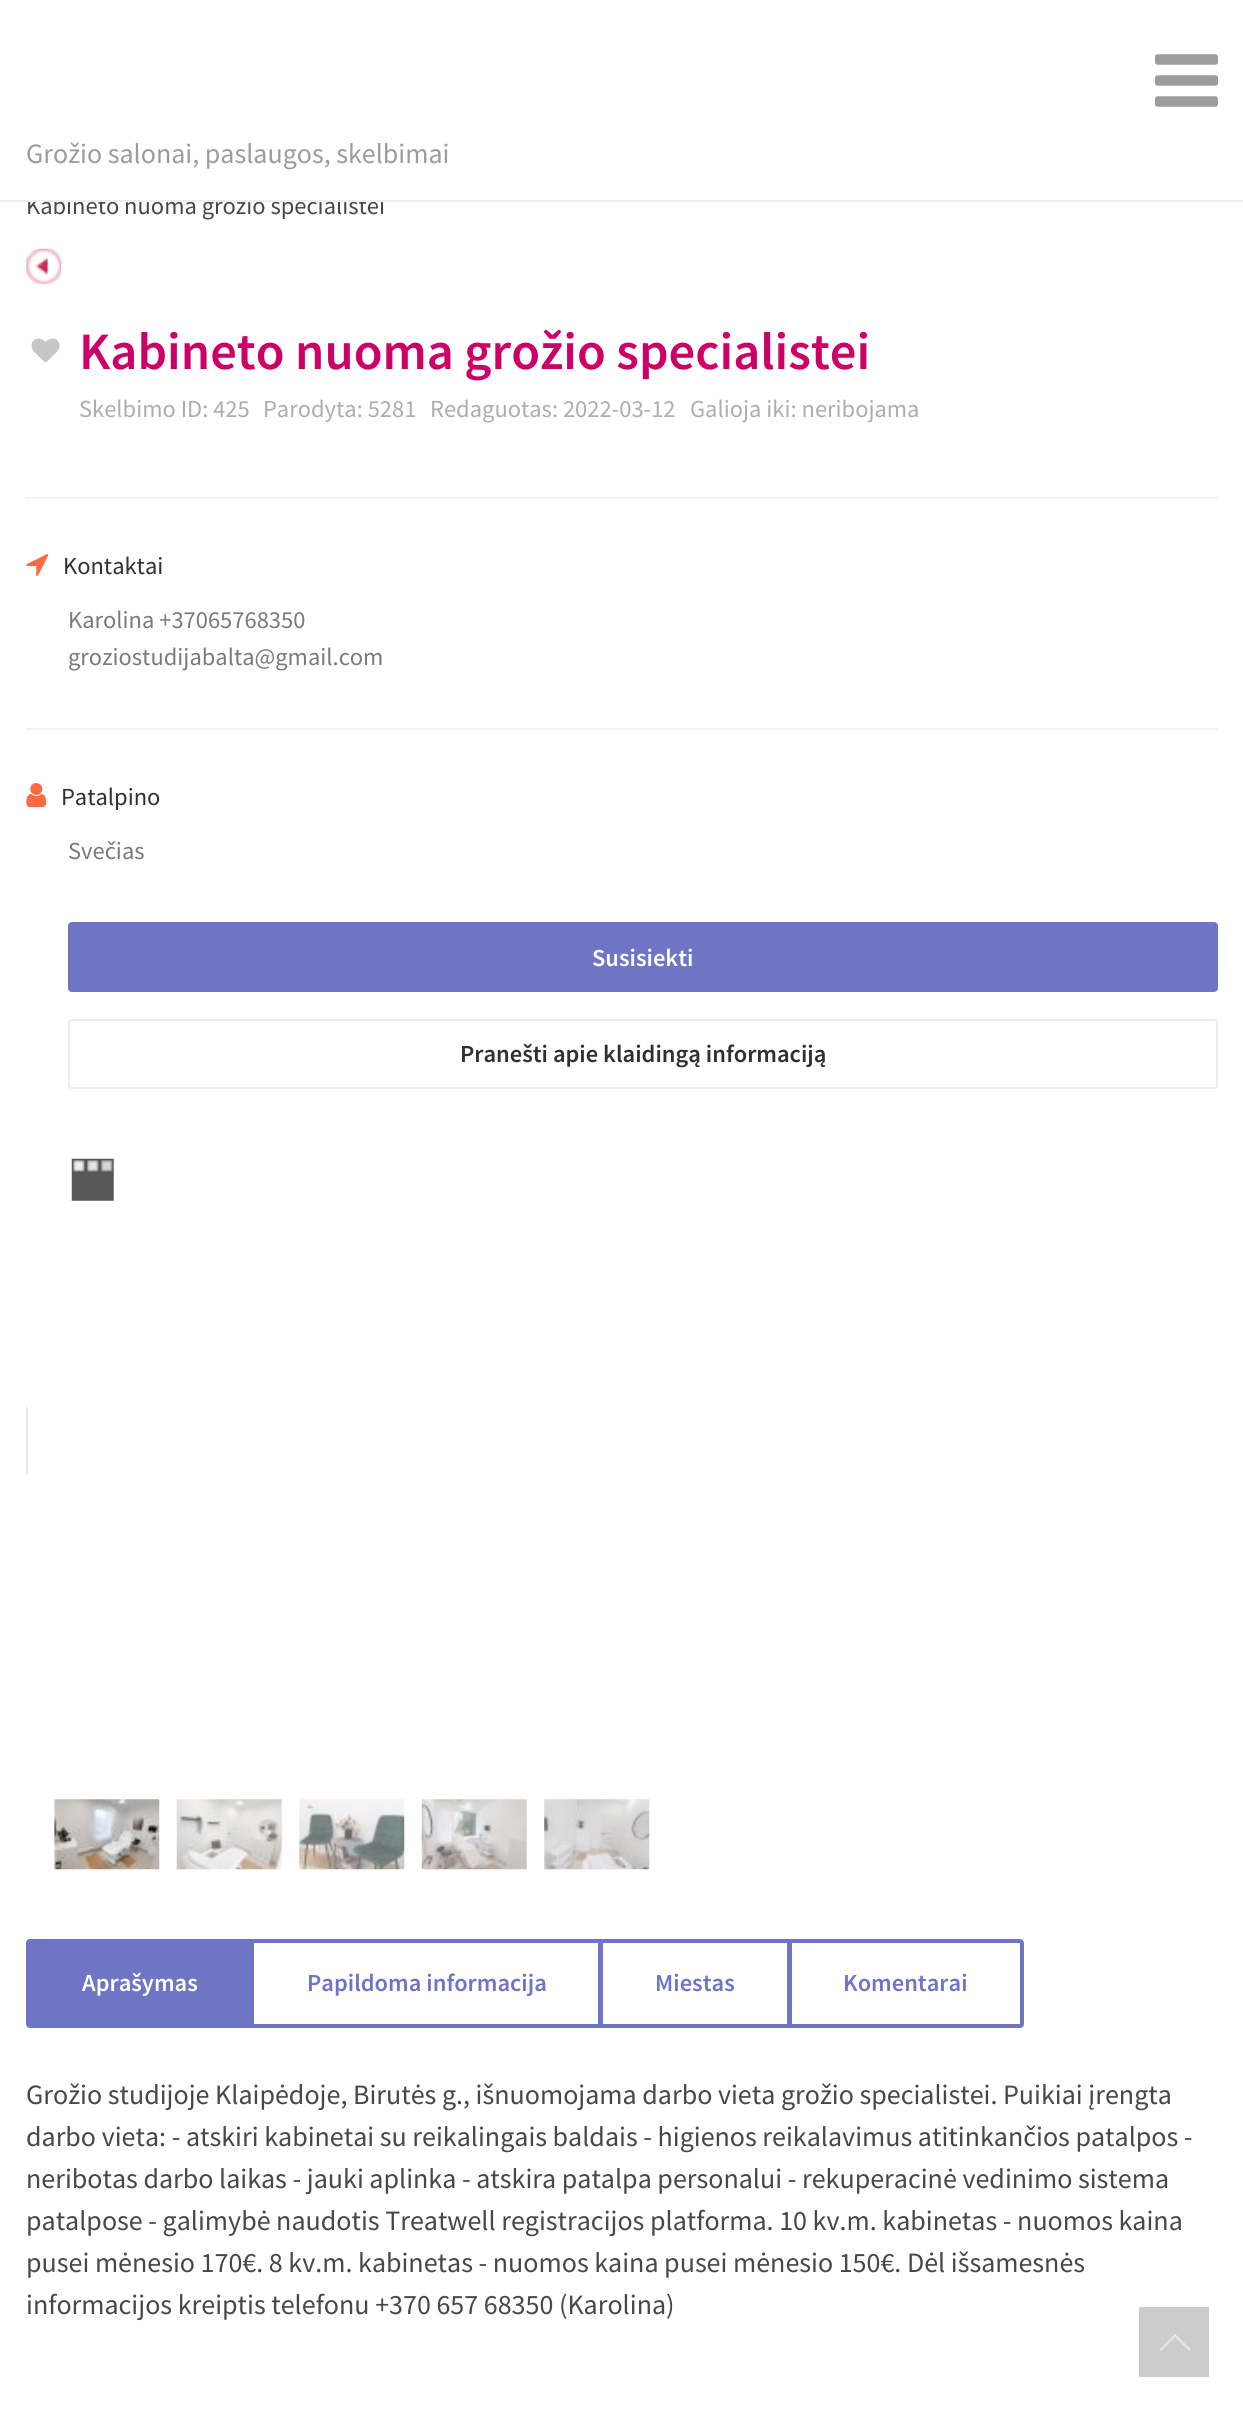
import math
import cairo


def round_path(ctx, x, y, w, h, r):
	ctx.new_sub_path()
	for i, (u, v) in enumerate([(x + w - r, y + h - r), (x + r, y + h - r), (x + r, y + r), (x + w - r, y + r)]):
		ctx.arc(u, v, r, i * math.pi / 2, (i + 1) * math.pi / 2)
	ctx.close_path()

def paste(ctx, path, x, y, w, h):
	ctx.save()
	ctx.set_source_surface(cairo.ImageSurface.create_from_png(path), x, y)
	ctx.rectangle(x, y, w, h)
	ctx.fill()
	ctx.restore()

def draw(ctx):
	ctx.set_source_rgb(1, 1, 1)
	ctx.paint()
	ctx.select_font_face('Source Sans Pro')
	ctx.set_font_size(24.5)
	ctx.set_source_rgb(0.278, 0.278, 0.278)
	ctx.move_to(26, 214)
	ctx.show_text('Kabineto nuoma grožio specialistei')
	ctx.set_source_rgb(1, 1, 1)
	ctx.rectangle(28, 195, 356, 5)
	ctx.fill()
	ctx.set_source_rgb(0.929, 0.929, 0.929)
	ctx.rectangle(0, 200, 1243, 2)
	ctx.fill()
	paste(ctx, 'media/1.png', 1155, 54, 63, 53)
	ctx.set_font_size(28)
	ctx.set_source_rgb(0.612, 0.612, 0.612)
	ctx.move_to(26, 163)
	ctx.show_text('Grožio salonai, paslaugos, skelbimai')
	paste(ctx, 'media/2.png', 26, 248, 36, 36)
	paste(ctx, 'media/3.png', 31, 338, 29, 25)
	ctx.select_font_face('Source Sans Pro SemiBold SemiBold')
	ctx.set_font_size(52.5)
	ctx.set_source_rgb(0.8, 0, 0.4)
	ctx.move_to(79, 369)
	ctx.show_text('Kabineto nuoma grožio specialistei')
	ctx.select_font_face('Source Sans Pro')
	ctx.set_font_size(24.5)
	ctx.set_source_rgb(0.678, 0.678, 0.678)
	for x, y, s in [
		(79, 417, 'Skelbimo ID: 425'),
		(263, 417, 'Parodyta: 5281'),
		(430, 417, 'Redaguotas: 2022-03-12'),
		(690, 417, 'Galioja iki: neribojama'),
	]:
		ctx.move_to(x, y)
		ctx.show_text(s)
	ctx.set_source_rgb(0.953, 0.953, 0.953)
	ctx.rectangle(26, 497, 1192, 2)
	ctx.fill()
	paste(ctx, 'media/4.png', 26, 554, 23, 22)
	ctx.set_source_rgb(0.18, 0.188, 0.2)
	ctx.move_to(63, 574)
	ctx.show_text('Kontaktai')
	ctx.set_source_rgb(0.478, 0.478, 0.478)
	ctx.move_to(68, 628)
	ctx.show_text('Karolina +37065768350')
	ctx.move_to(68, 665)
	ctx.show_text('groziostudijabalta@gmail.com')
	ctx.set_source_rgb(0.953, 0.953, 0.953)
	ctx.rectangle(26, 728, 1192, 2)
	ctx.fill()
	paste(ctx, 'media/5.png', 26, 783, 21, 24)
	ctx.set_source_rgb(0.18, 0.188, 0.2)
	ctx.move_to(61, 805)
	ctx.show_text('Patalpino')
	ctx.set_source_rgb(0.478, 0.478, 0.478)
	ctx.move_to(68, 859)
	ctx.show_text('Svečias')
	ctx.set_source_rgb(0.435, 0.459, 0.769)
	round_path(ctx, 68, 922, 1150, 70, 4)
	ctx.fill()
	ctx.select_font_face('Source Sans Pro SemiBold SemiBold')
	ctx.set_source_rgb(1, 1, 1)
	ctx.move_to(592, 966)
	ctx.show_text('Susisiekti')
	round_path(ctx, 69, 1020, 1148, 68, 3)
	ctx.set_source_rgb(0.922, 0.922, 0.922)
	ctx.stroke()
	ctx.set_source_rgb(0.18, 0.188, 0.2)
	ctx.move_to(460, 1062)
	ctx.show_text('Pranešti apie klaidingą informaciją')
	paste(ctx, 'media/6.png', 71, 1158, 43, 43)
	paste(ctx, 'media/7.png', 26, 1405, 2, 70)
	paste(ctx, 'media/8.png', 54, 1799, 106, 71)
	paste(ctx, 'media/9.png', 176, 1799, 106, 71)
	paste(ctx, 'media/10.png', 299, 1799, 106, 71)
	paste(ctx, 'media/11.png', 421, 1799, 106, 71)
	paste(ctx, 'media/12.png', 544, 1799, 106, 71)
	ctx.set_source_rgb(0.435, 0.459, 0.769)
	ctx.new_path()
	ctx.move_to(30, 1941)
	ctx.line_to(252, 1941)
	ctx.line_to(252, 2026)
	ctx.line_to(30, 2026)
	ctx.curve_to(29, 2026, 28, 2025, 28, 2024)
	ctx.line_to(28, 1943)
	ctx.curve_to(28, 1942, 29, 1941, 30, 1941)
	ctx.close_path()
	ctx.fill_preserve()
	ctx.set_line_width(4)
	ctx.stroke()
	ctx.set_source_rgb(1, 1, 1)
	ctx.move_to(82, 1991)
	ctx.show_text('Aprašymas')
	ctx.rectangle(252, 1941, 348, 85)
	ctx.set_source_rgb(0.435, 0.459, 0.769)
	ctx.stroke()
	ctx.move_to(307, 1991)
	ctx.show_text('Papildoma informacija')
	ctx.rectangle(601, 1941, 188, 85)
	ctx.stroke()
	ctx.move_to(655, 1991)
	ctx.show_text('Miestas')
	ctx.set_source_rgb(1, 1, 1)
	ctx.new_path()
	ctx.move_to(790, 1941)
	ctx.line_to(1020, 1941)
	ctx.curve_to(1021, 1941, 1022, 1942, 1022, 1943)
	ctx.line_to(1022, 2024)
	ctx.curve_to(1022, 2025, 1021, 2026, 1020, 2026)
	ctx.line_to(790, 2026)
	ctx.close_path()
	ctx.fill_preserve()
	ctx.set_source_rgb(0.435, 0.459, 0.769)
	ctx.stroke()
	ctx.move_to(843, 1991)
	ctx.show_text('Komentarai')
	ctx.select_font_face('Source Sans Pro')
	ctx.set_font_size(28)
	ctx.set_source_rgb(0.278, 0.278, 0.278)
	for x, y, s in [
		(26, 2104, 'Grožio studijoje Klaipėdoje, Birutės g., išnuomojama darbo vieta grožio specialistei. Puikiai įrengta'),
		(26, 2146, 'darbo vieta: - atskiri kabinetai su reikalingais baldais - higienos reikalavimus atitinkančios patalpos -'),
		(26, 2188, 'neribotas darbo laikas - jauki aplinka - atskira patalpa personalui - rekuperacinė vedinimo sistema'),
		(26, 2230, 'patalpose - galimybė naudotis Treatwell registracijos platforma. 10 kv.m. kabinetas - nuomos kaina'),
		(26, 2272, 'pusei mėnesio 170€. 8 kv.m. kabinetas - nuomos kaina pusei mėnesio 150€. Dėl išsamesnės'),
		(26, 2314, 'informacijos kreiptis telefonu +370 657 68350 (Karolina)'),
	]:
		ctx.move_to(x, y)
		ctx.show_text(s)
	ctx.set_source_rgb(0.8, 0.8, 0.8)
	ctx.rectangle(1139, 2307, 70, 70)
	ctx.fill()
	paste(ctx, 'media/13.png', 1160, 2334, 30, 17)


surface = cairo.ImageSurface(cairo.FORMAT_RGB24, 1243, 2419)
ctx = cairo.Context(surface)
options = cairo.FontOptions()
options.set_hint_metrics(cairo.HINT_METRICS_OFF)
options.set_hint_style(cairo.HINT_STYLE_NONE)
ctx.set_font_options(options)
ctx.set_miter_limit(4)
draw(ctx)
surface.write_to_png('image.png')
